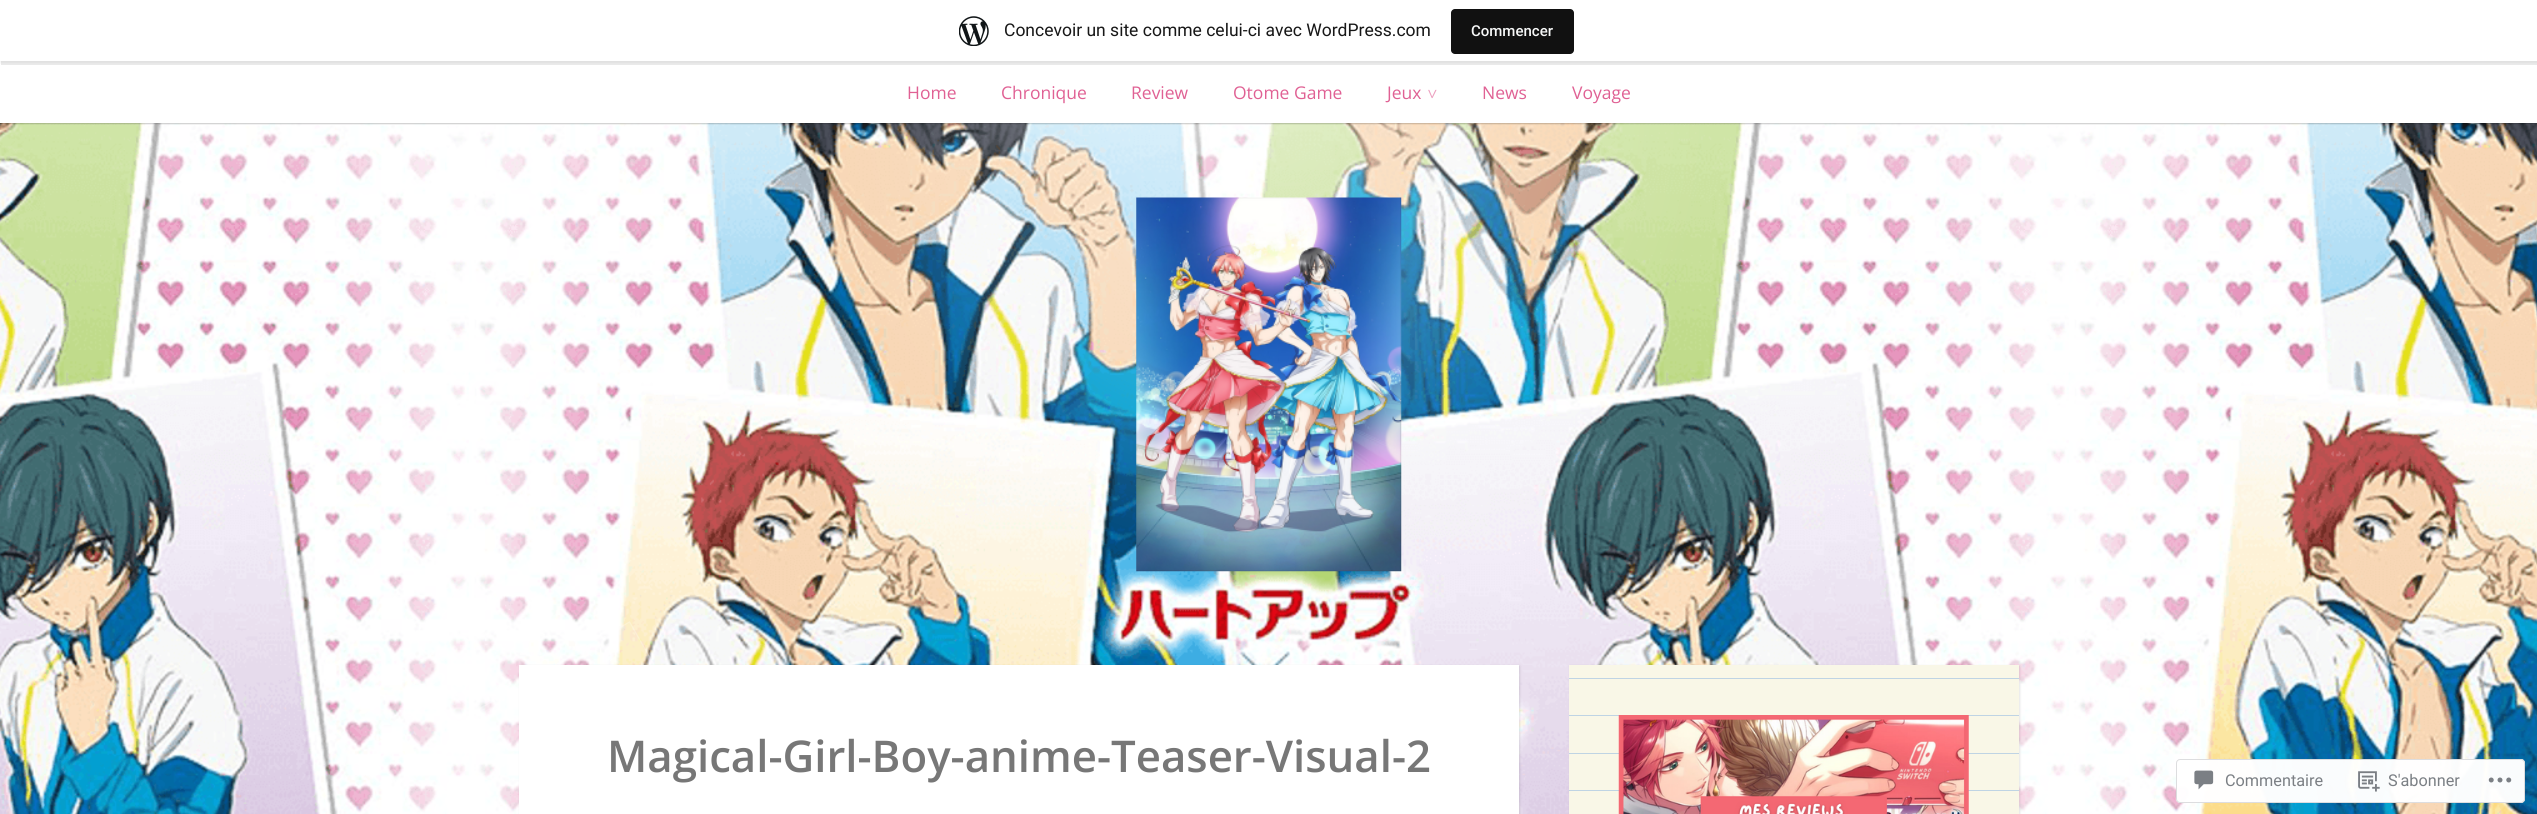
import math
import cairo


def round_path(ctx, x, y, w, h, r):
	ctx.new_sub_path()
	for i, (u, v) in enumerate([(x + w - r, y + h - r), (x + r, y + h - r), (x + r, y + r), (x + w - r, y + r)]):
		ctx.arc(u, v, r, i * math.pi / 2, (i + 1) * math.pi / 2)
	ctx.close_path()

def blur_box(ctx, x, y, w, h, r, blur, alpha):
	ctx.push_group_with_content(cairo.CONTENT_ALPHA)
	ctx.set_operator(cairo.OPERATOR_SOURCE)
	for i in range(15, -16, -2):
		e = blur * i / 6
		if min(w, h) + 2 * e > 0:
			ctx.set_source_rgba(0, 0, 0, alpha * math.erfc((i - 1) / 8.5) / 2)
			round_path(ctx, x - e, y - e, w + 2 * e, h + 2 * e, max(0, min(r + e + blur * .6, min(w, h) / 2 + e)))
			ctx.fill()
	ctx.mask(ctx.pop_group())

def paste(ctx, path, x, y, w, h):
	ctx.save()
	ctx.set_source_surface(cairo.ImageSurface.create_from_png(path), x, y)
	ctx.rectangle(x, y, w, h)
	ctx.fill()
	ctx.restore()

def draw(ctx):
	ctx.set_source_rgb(1, 1, 1)
	ctx.paint()
	paste(ctx, 'media/1.png', 0, 123, 2537, 691)
	ctx.set_source_rgb(0, 0, 0)
	blur_box(ctx, 1, 63, 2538, 61, 0, 0.5, 0.2)
	ctx.set_source_rgb(1, 1, 1)
	ctx.rectangle(0, 62, 2537, 61)
	ctx.fill()
	ctx.set_source_rgb(0, 0, 0)
	blur_box(ctx, 0, 1, 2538, 62, 0, 1, 0.05)
	ctx.set_source_rgba(0, 0, 0, 0.08)
	ctx.new_path()
	ctx.move_to(1, 61)
	ctx.line_to(1, 65)
	ctx.line_to(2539, 65)
	ctx.line_to(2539, 4)
	ctx.line_to(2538, 4)
	ctx.line_to(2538, 61)
	ctx.close_path()
	ctx.fill()
	ctx.set_source_rgb(1, 1, 1)
	ctx.rectangle(0, 0, 2537, 61)
	ctx.fill()
	paste(ctx, 'media/2.png', 959, 16, 30, 30)
	ctx.select_font_face('Roboto')
	ctx.set_font_size(17.5)
	ctx.set_source_rgb(0.09, 0.09, 0.09)
	ctx.move_to(1004, 36)
	ctx.show_text('Concevoir un site comme celui-ci avec WordPress.com')
	ctx.set_source_rgb(0.067, 0.067, 0.067)
	round_path(ctx, 1451, 9, 123, 45, 4)
	ctx.fill()
	ctx.select_font_face('Roboto Medium')
	ctx.set_font_size(15)
	ctx.set_source_rgb(0.965, 0.969, 0.969)
	ctx.move_to(1471, 36)
	ctx.show_text('Commencer')
	ctx.select_font_face('Open Sans')
	ctx.set_font_size(17.5)
	ctx.set_source_rgb(0.878, 0.38, 0.58)
	for x, y, s in [
		(907, 99, 'Home'),
		(1001, 99, 'Chronique'),
		(1131, 99, 'Review'),
		(1233, 99, 'Otome Game'),
		(1387, 99, 'Jeux'),
	]:
		ctx.move_to(x, y)
		ctx.show_text(s)
	ctx.set_source_rgb(0.925, 0.627, 0.749)
	ctx.save()
	ctx.translate(1426, 89)
	ctx.rotate(90 * math.pi / 180)
	ctx.move_to(0, 0)
	ctx.show_text('>')
	ctx.restore()
	ctx.set_source_rgb(0.878, 0.38, 0.58)
	ctx.move_to(1482, 99)
	ctx.show_text('News')
	ctx.move_to(1572, 99)
	ctx.show_text('Voyage')
	paste(ctx, 'media/3.png', 1136, 197, 266, 375)
	ctx.set_source_rgb(0, 0, 0)
	blur_box(ctx, 520, 666, 1000, 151, 0, 1, 0.1)
	ctx.set_source_rgb(1, 1, 1)
	ctx.rectangle(519, 665, 1000, 149)
	ctx.fill()
	ctx.set_source_rgba(1, 1, 1, 0.1)
	ctx.new_path()
	ctx.move_to(467, 715)
	ctx.line_to(630, 621)
	ctx.line_to(658, 670)
	ctx.line_to(495, 764)
	ctx.close_path()
	ctx.fill()
	ctx.select_font_face('Open Sans SemiBold')
	ctx.set_font_size(43.75)
	ctx.set_source_rgb(0.467, 0.467, 0.467)
	ctx.move_to(607, 772)
	ctx.show_text('Magical-Girl-Boy-anime-Teaser-Visual-2')
	ctx.new_path()
	ctx.move_to(468, 715.5)
	ctx.line_to(629.5, 622)
	ctx.line_to(657, 670)
	ctx.line_to(495.5, 763)
	ctx.close_path()
	ctx.set_source_rgba(1, 1, 1, 0.2)
	ctx.set_line_width(1.2)
	ctx.stroke()
	ctx.set_source_rgb(0, 0, 0)
	blur_box(ctx, 1570, 666, 450, 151, 0, 1, 0.1)
	ctx.set_source_rgb(0.976, 0.965, 0.906)
	ctx.rectangle(1569, 665, 450, 149)
	ctx.fill()
	ctx.set_source_rgb(0.749, 0.831, 0.894)
	ctx.rectangle(1569, 678, 450, 1)
	ctx.rectangle(1569, 715, 450, 1)
	ctx.rectangle(1569, 753, 450, 1)
	ctx.rectangle(1569, 790, 450, 1)
	ctx.fill()
	paste(ctx, 'media/4.png', 1618, 715, 351, 99)
	ctx.set_source_rgba(1, 1, 1, 0.98)
	round_path(ctx, 2176, 759, 349, 44, 4)
	ctx.fill()
	round_path(ctx, 2176.5, 759.5, 348, 43, 3.5)
	ctx.set_source_rgba(0.863, 0.863, 0.871, 0.98)
	ctx.set_line_width(1)
	ctx.stroke()
	paste(ctx, 'media/5.png', 2194, 770, 20, 20)
	ctx.select_font_face('Roboto')
	ctx.set_font_size(16.25)
	ctx.set_source_rgb(0.482, 0.498, 0.518)
	ctx.move_to(2225, 786)
	ctx.show_text('Commentaire')
	paste(ctx, 'media/6.png', 2358, 771, 22, 21)
	ctx.move_to(2388, 786)
	ctx.show_text('S\'abonner')
	paste(ctx, 'media/7.png', 2488, 777, 24, 6)


surface = cairo.ImageSurface(cairo.FORMAT_RGB24, 2537, 814)
ctx = cairo.Context(surface)
options = cairo.FontOptions()
options.set_hint_metrics(cairo.HINT_METRICS_OFF)
options.set_hint_style(cairo.HINT_STYLE_NONE)
ctx.set_font_options(options)
ctx.set_miter_limit(4)
draw(ctx)
surface.write_to_png('image.png')
